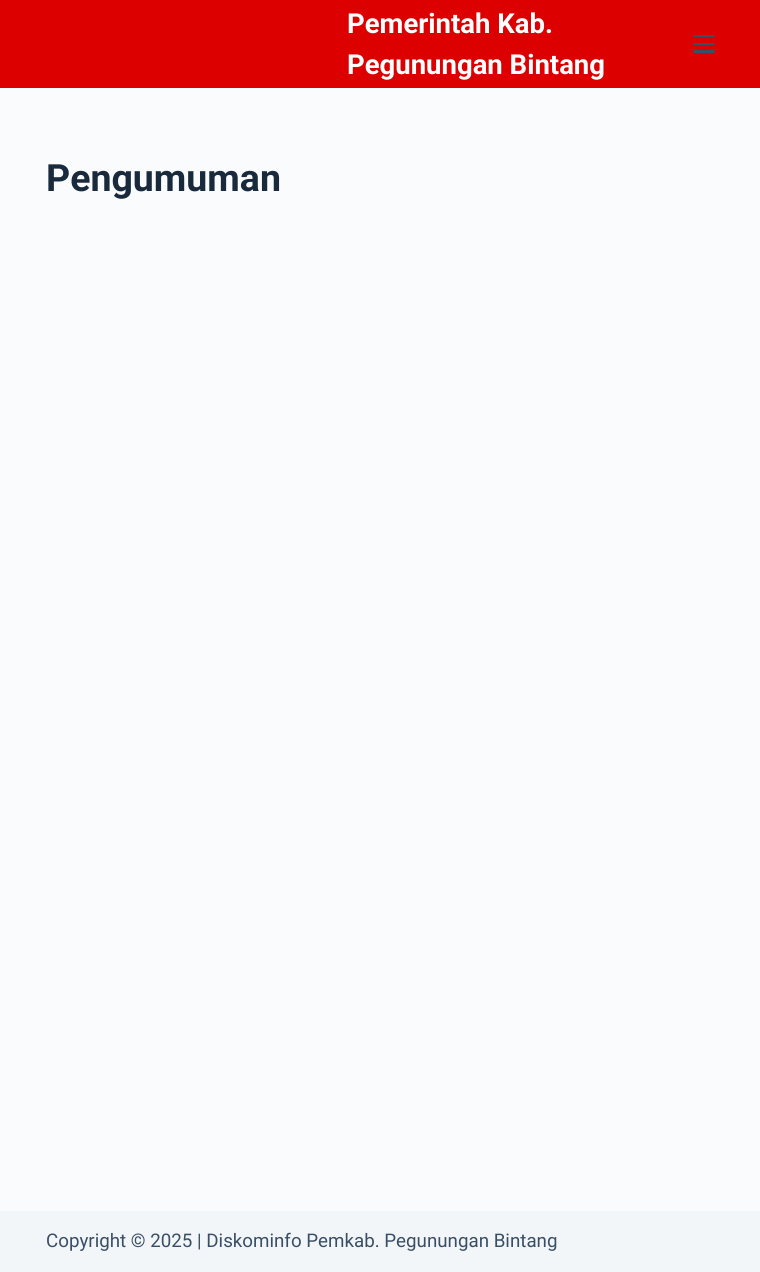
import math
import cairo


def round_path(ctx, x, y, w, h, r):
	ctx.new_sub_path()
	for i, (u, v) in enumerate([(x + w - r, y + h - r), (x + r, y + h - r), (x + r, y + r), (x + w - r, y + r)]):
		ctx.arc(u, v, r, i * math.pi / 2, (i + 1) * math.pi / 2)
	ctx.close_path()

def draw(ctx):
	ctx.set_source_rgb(0.98, 0.984, 0.988)
	ctx.paint()
	ctx.set_source_rgb(0.867, 0, 0)
	ctx.rectangle(0, 0, 760, 88)
	ctx.fill()
	ctx.select_font_face('Roboto', cairo.FONT_SLANT_NORMAL, cairo.FONT_WEIGHT_BOLD)
	ctx.set_font_size(27.5)
	ctx.set_source_rgb(1, 1, 1)
	ctx.move_to(347, 33)
	ctx.show_text('Pemerintah Kab.')
	ctx.move_to(347, 74)
	ctx.show_text('Pegunungan Bintang')
	ctx.set_source_rgb(0.227, 0.31, 0.4)
	round_path(ctx, 693, 35, 22, 2, 1)
	ctx.fill()
	round_path(ctx, 693, 43, 22, 2, 1)
	ctx.fill()
	round_path(ctx, 693, 50, 22, 3, 1.5)
	ctx.fill()
	ctx.set_font_size(37.5)
	ctx.set_source_rgb(0.098, 0.165, 0.239)
	ctx.move_to(46, 191)
	ctx.show_text('Pengumuman')
	ctx.set_source_rgb(0.949, 0.961, 0.969)
	ctx.rectangle(0, 1211, 760, 61)
	ctx.fill()
	ctx.select_font_face('Roboto')
	ctx.set_font_size(18.75)
	ctx.set_source_rgb(0.227, 0.31, 0.4)
	ctx.move_to(46, 1247)
	ctx.show_text('Copyright © 2025 | Diskominfo Pemkab. Pegunungan Bintang')


surface = cairo.ImageSurface(cairo.FORMAT_RGB24, 760, 1272)
ctx = cairo.Context(surface)
options = cairo.FontOptions()
options.set_hint_metrics(cairo.HINT_METRICS_OFF)
options.set_hint_style(cairo.HINT_STYLE_NONE)
ctx.set_font_options(options)
ctx.set_miter_limit(4)
draw(ctx)
surface.write_to_png('image.png')
